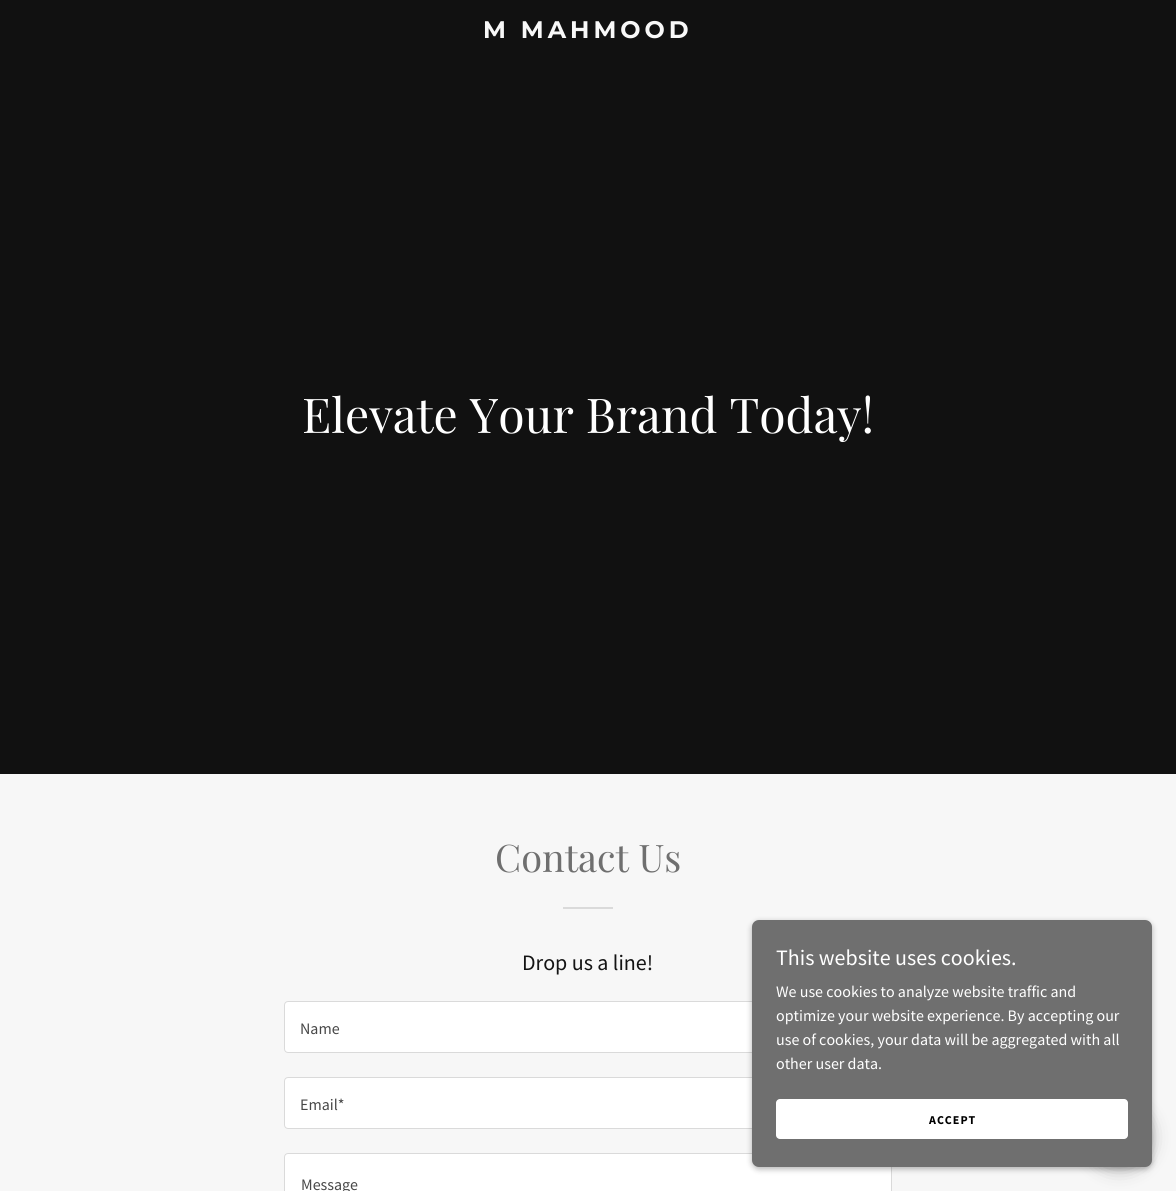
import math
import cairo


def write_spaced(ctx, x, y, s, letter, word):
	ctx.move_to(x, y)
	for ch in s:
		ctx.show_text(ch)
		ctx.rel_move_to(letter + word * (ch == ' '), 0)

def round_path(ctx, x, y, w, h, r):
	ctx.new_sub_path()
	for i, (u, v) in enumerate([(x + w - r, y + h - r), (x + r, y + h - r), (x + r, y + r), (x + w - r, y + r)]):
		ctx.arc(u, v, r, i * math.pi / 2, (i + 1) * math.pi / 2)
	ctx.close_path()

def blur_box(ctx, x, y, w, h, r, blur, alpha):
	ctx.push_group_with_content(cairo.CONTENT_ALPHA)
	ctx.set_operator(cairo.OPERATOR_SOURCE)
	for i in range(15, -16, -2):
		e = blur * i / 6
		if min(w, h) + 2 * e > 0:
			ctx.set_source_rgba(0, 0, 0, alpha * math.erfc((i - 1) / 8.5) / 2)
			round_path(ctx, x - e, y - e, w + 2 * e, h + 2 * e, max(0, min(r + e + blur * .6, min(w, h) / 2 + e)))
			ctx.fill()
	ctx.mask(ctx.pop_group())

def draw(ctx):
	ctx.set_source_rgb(0.965, 0.965, 0.965)
	ctx.paint()
	ctx.set_source_rgb(0.067, 0.067, 0.067)
	ctx.rectangle(0, 0, 1176, 774)
	ctx.fill()
	ctx.select_font_face('Montserrat', cairo.FONT_SLANT_NORMAL, cairo.FONT_WEIGHT_BOLD)
	ctx.set_font_size(24)
	ctx.set_source_rgb(0.969, 0.969, 0.969)
	write_spaced(ctx, 483, 38, 'M MAHMOOD', 4, 0)
	ctx.select_font_face('Playfair Display')
	ctx.set_font_size(48)
	ctx.set_source_rgb(1, 1, 1)
	ctx.move_to(302, 433)
	ctx.show_text('Elevate Your Brand Today!')
	ctx.set_font_size(38)
	ctx.set_source_rgb(0.435, 0.435, 0.435)
	ctx.move_to(495, 872)
	ctx.show_text('Contact Us')
	ctx.set_source_rgb(0.855, 0.855, 0.855)
	ctx.rectangle(563, 907, 50, 2)
	ctx.fill()
	ctx.select_font_face('Source Sans Pro')
	ctx.set_font_size(22)
	ctx.set_source_rgb(0.082, 0.082, 0.082)
	ctx.move_to(522, 970)
	ctx.show_text('Drop us a line!')
	ctx.set_source_rgb(1, 1, 1)
	round_path(ctx, 284.5, 1001.5, 607, 51, 3.5)
	ctx.fill_preserve()
	ctx.set_source_rgb(0.855, 0.855, 0.855)
	ctx.set_line_width(1)
	ctx.stroke()
	ctx.set_font_size(16)
	ctx.set_source_rgb(0.278, 0.278, 0.278)
	ctx.move_to(300, 1034)
	ctx.show_text('Name')
	ctx.set_source_rgb(1, 1, 1)
	round_path(ctx, 284.5, 1077.5, 607, 51, 3.5)
	ctx.fill_preserve()
	ctx.set_source_rgb(0.855, 0.855, 0.855)
	ctx.stroke()
	ctx.set_source_rgb(0.278, 0.278, 0.278)
	ctx.move_to(300, 1110)
	ctx.show_text('Email*')
	ctx.set_source_rgb(1, 1, 1)
	round_path(ctx, 284.5, 1153.5, 607, 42, 3.5)
	ctx.fill_preserve()
	ctx.set_source_rgb(0.855, 0.855, 0.855)
	ctx.stroke()
	ctx.set_source_rgb(0.278, 0.278, 0.278)
	ctx.move_to(301, 1190)
	ctx.show_text('Message')
	ctx.set_source_rgb(0, 0, 0)
	blur_box(ctx, 752, 922, 400, 247, 7, 3, 0.3)
	blur_box(ctx, 1087, 1105, 65, 65, 32.5, 9, 0.25)
	ctx.set_source_rgb(0.435, 0.435, 0.435)
	round_path(ctx, 752, 920, 400, 247, 7)
	ctx.fill()
	ctx.set_font_size(22)
	ctx.set_source_rgb(1, 1, 1)
	ctx.move_to(776, 965)
	ctx.show_text('This website uses cookies.')
	ctx.set_font_size(16)
	for x, y, s in [
		(776, 997, 'We use cookies to analyze website traffic and'),
		(776, 1021, 'optimize your website experience. By accepting our'),
		(776, 1045, 'use of cookies, your data will be aggregated with all'),
		(776, 1069, 'other user data.'),
	]:
		ctx.move_to(x, y)
		ctx.show_text(s)
	round_path(ctx, 776, 1099, 352, 40, 4)
	ctx.fill()
	ctx.select_font_face('Source Sans Pro', cairo.FONT_SLANT_NORMAL, cairo.FONT_WEIGHT_BOLD)
	ctx.set_font_size(12)
	ctx.set_source_rgb(0, 0, 0)
	write_spaced(ctx, 929, 1124, 'ACCEPT', 1, 0)


surface = cairo.ImageSurface(cairo.FORMAT_RGB24, 1176, 1191)
ctx = cairo.Context(surface)
options = cairo.FontOptions()
options.set_hint_metrics(cairo.HINT_METRICS_OFF)
options.set_hint_style(cairo.HINT_STYLE_NONE)
ctx.set_font_options(options)
ctx.set_miter_limit(4)
draw(ctx)
surface.write_to_png('image.png')
